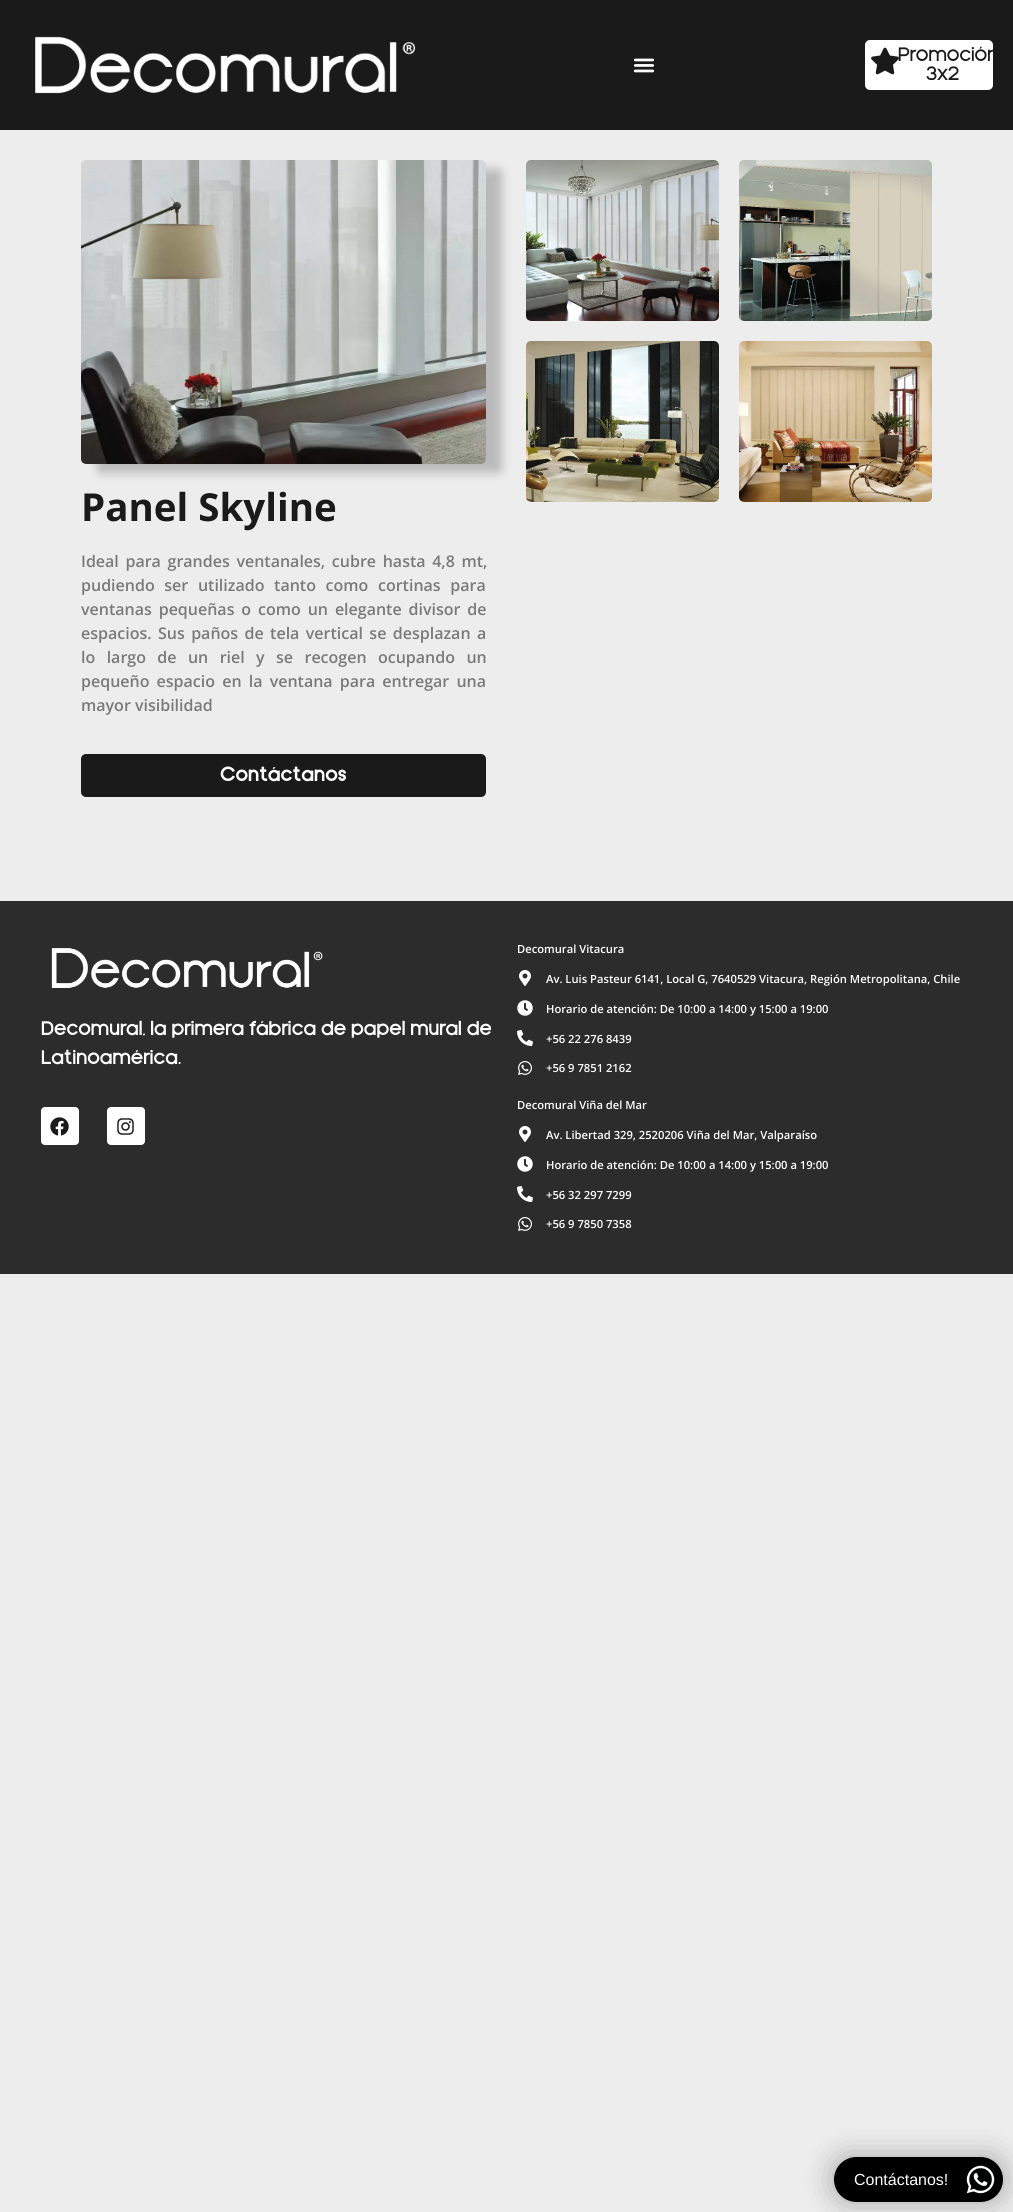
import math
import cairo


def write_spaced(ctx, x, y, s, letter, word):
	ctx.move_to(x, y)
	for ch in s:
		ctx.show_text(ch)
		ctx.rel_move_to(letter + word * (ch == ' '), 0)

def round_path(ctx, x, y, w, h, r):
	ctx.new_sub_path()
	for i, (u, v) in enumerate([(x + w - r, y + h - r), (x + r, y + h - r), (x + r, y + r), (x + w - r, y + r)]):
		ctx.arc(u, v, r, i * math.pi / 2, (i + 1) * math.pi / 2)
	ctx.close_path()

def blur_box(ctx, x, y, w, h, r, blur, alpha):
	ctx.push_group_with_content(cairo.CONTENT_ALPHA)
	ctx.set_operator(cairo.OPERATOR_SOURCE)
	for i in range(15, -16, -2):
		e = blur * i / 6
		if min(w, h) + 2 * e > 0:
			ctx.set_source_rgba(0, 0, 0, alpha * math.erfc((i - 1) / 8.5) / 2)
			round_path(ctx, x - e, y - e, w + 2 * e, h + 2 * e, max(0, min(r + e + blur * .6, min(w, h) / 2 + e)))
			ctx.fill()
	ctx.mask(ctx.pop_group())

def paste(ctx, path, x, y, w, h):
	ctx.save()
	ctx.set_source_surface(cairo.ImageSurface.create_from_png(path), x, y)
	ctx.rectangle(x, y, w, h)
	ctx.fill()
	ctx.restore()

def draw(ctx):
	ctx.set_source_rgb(0.929, 0.929, 0.929)
	ctx.paint()
	ctx.set_source_rgb(0.102, 0.102, 0.102)
	ctx.rectangle(0, 0, 1013, 130)
	ctx.fill()
	paste(ctx, 'media/1.png', 35, 36, 381, 58)
	paste(ctx, 'media/2.png', 633, 58, 22, 15)
	ctx.set_source_rgb(1, 1, 1)
	round_path(ctx, 865, 40, 128, 50, 5)
	ctx.fill()
	paste(ctx, 'media/3.png', 871, 47, 28, 28)
	ctx.select_font_face('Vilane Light')
	ctx.set_font_size(19.2)
	ctx.set_source_rgb(0.102, 0.102, 0.102)
	ctx.move_to(898, 61)
	ctx.show_text('Promoción')
	ctx.move_to(926, 80)
	ctx.show_text('3x2')
	paste(ctx, 'media/4.png', 526, 160, 193, 161)
	paste(ctx, 'media/5.png', 739, 160, 193, 161)
	paste(ctx, 'media/6.png', 526, 341, 193, 161)
	paste(ctx, 'media/7.png', 739, 341, 193, 161)
	ctx.set_source_rgb(0, 0, 0)
	blur_box(ctx, 97, 169, 405, 304, 5, 5, 0.22)
	paste(ctx, 'media/8.png', 81, 160, 405, 304)
	ctx.select_font_face('Open Sans', cairo.FONT_SLANT_NORMAL, cairo.FONT_WEIGHT_BOLD)
	ctx.set_font_size(38.5)
	ctx.set_source_rgb(0.102, 0.102, 0.102)
	ctx.move_to(81, 521)
	ctx.show_text('Panel Skyline')
	ctx.select_font_face('Open Sans SemiBold')
	ctx.set_font_size(16)
	ctx.set_source_rgb(0.478, 0.478, 0.478)
	write_spaced(ctx, 81, 567, 'Ideal para grandes ventanales, cubre hasta 4,8 mt,', 0, 2.5)
	write_spaced(ctx, 81, 591, 'pudiendo ser utilizado tanto como cortinas para', 0, 5.5)
	write_spaced(ctx, 81, 615, 'ventanas pequeñas o como un elegante divisor de', 0, 2.75)
	write_spaced(ctx, 81, 639, 'espacios. Sus paños de tela vertical se desplazan a', 0, 2.25)
	write_spaced(ctx, 81, 663, 'lo largo de un riel y se recogen ocupando un', 0, 7.25)
	write_spaced(ctx, 81, 687, 'pequeño espacio en la ventana para entregar una', 0, 3)
	ctx.move_to(81, 711)
	ctx.show_text('mayor visibilidad')
	ctx.set_source_rgb(0.102, 0.102, 0.102)
	round_path(ctx, 81, 754, 405, 43, 5)
	ctx.fill()
	ctx.select_font_face('Vilane', cairo.FONT_SLANT_NORMAL, cairo.FONT_WEIGHT_BOLD)
	ctx.set_font_size(19.2)
	ctx.set_source_rgb(1, 1, 1)
	ctx.move_to(220, 781)
	ctx.show_text('Contáctanos')
	ctx.set_source_rgb(0.173, 0.173, 0.176)
	ctx.rectangle(0, 901, 1013, 373)
	ctx.fill()
	paste(ctx, 'media/9.png', 51, 948, 272, 40)
	ctx.select_font_face('Vilane Medium')
	ctx.set_source_rgb(1, 1, 1)
	ctx.move_to(41, 1035)
	ctx.show_text('Decomural, la primera fábrica de papel mural de')
	ctx.move_to(41, 1064)
	ctx.show_text('Latinoamérica.')
	round_path(ctx, 41, 1107, 38, 38, 4)
	ctx.fill()
	paste(ctx, 'media/10.png', 50, 1117, 19, 19)
	round_path(ctx, 107, 1107, 38, 38, 4)
	ctx.fill()
	paste(ctx, 'media/11.png', 117, 1118, 17, 17)
	ctx.select_font_face('Open Sans SemiBold')
	ctx.set_font_size(11.2)
	ctx.move_to(517, 953)
	ctx.show_text('Decomural Vitacura')
	paste(ctx, 'media/12.png', 519, 970, 12, 16)
	ctx.move_to(546, 983)
	ctx.show_text('Av. Luis Pasteur 6141, Local G, 7640529 Vitacura, Región Metropolitana, Chile')
	paste(ctx, 'media/13.png', 517, 1000, 16, 16)
	ctx.move_to(546, 1013)
	ctx.show_text('Horario de atención: De 10:00 a 14:00 y 15:00 a 19:00')
	paste(ctx, 'media/14.png', 517, 1030, 16, 16)
	ctx.move_to(546, 1043)
	ctx.show_text('+56 22 276 8439')
	paste(ctx, 'media/15.png', 518, 1061, 14, 14)
	ctx.move_to(546, 1072)
	ctx.show_text('+56 9 7851 2162')
	ctx.move_to(517, 1109)
	ctx.show_text('Decomural Viña del Mar')
	paste(ctx, 'media/12.png', 519, 1126, 12, 16)
	ctx.move_to(546, 1139)
	ctx.show_text('Av. Libertad 329, 2520206 Viña del Mar, Valparaíso')
	paste(ctx, 'media/13.png', 517, 1156, 16, 16)
	ctx.move_to(546, 1169)
	ctx.show_text('Horario de atención: De 10:00 a 14:00 y 15:00 a 19:00')
	paste(ctx, 'media/14.png', 517, 1186, 16, 16)
	ctx.move_to(546, 1199)
	ctx.show_text('+56 32 297 7299')
	paste(ctx, 'media/15.png', 518, 1217, 14, 14)
	ctx.move_to(546, 1228)
	ctx.show_text('+56 9 7850 7358')
	ctx.set_source_rgb(0, 0, 0)
	blur_box(ctx, 834, 2157, 169, 45, 22.5, 15, 0.3)
	ctx.set_source_rgb(0, 0, 0)
	round_path(ctx, 834, 2157, 169, 45, 22.5)
	ctx.fill()
	ctx.select_font_face('Liberation Sans')
	ctx.set_font_size(16)
	ctx.set_source_rgb(1, 1, 1)
	ctx.move_to(854, 2185)
	ctx.show_text('Contáctanos!')
	paste(ctx, 'media/16.png', 966, 2165, 29, 29)


surface = cairo.ImageSurface(cairo.FORMAT_RGB24, 1013, 2212)
ctx = cairo.Context(surface)
options = cairo.FontOptions()
options.set_hint_metrics(cairo.HINT_METRICS_OFF)
options.set_hint_style(cairo.HINT_STYLE_NONE)
ctx.set_font_options(options)
ctx.set_miter_limit(4)
draw(ctx)
surface.write_to_png('image.png')
